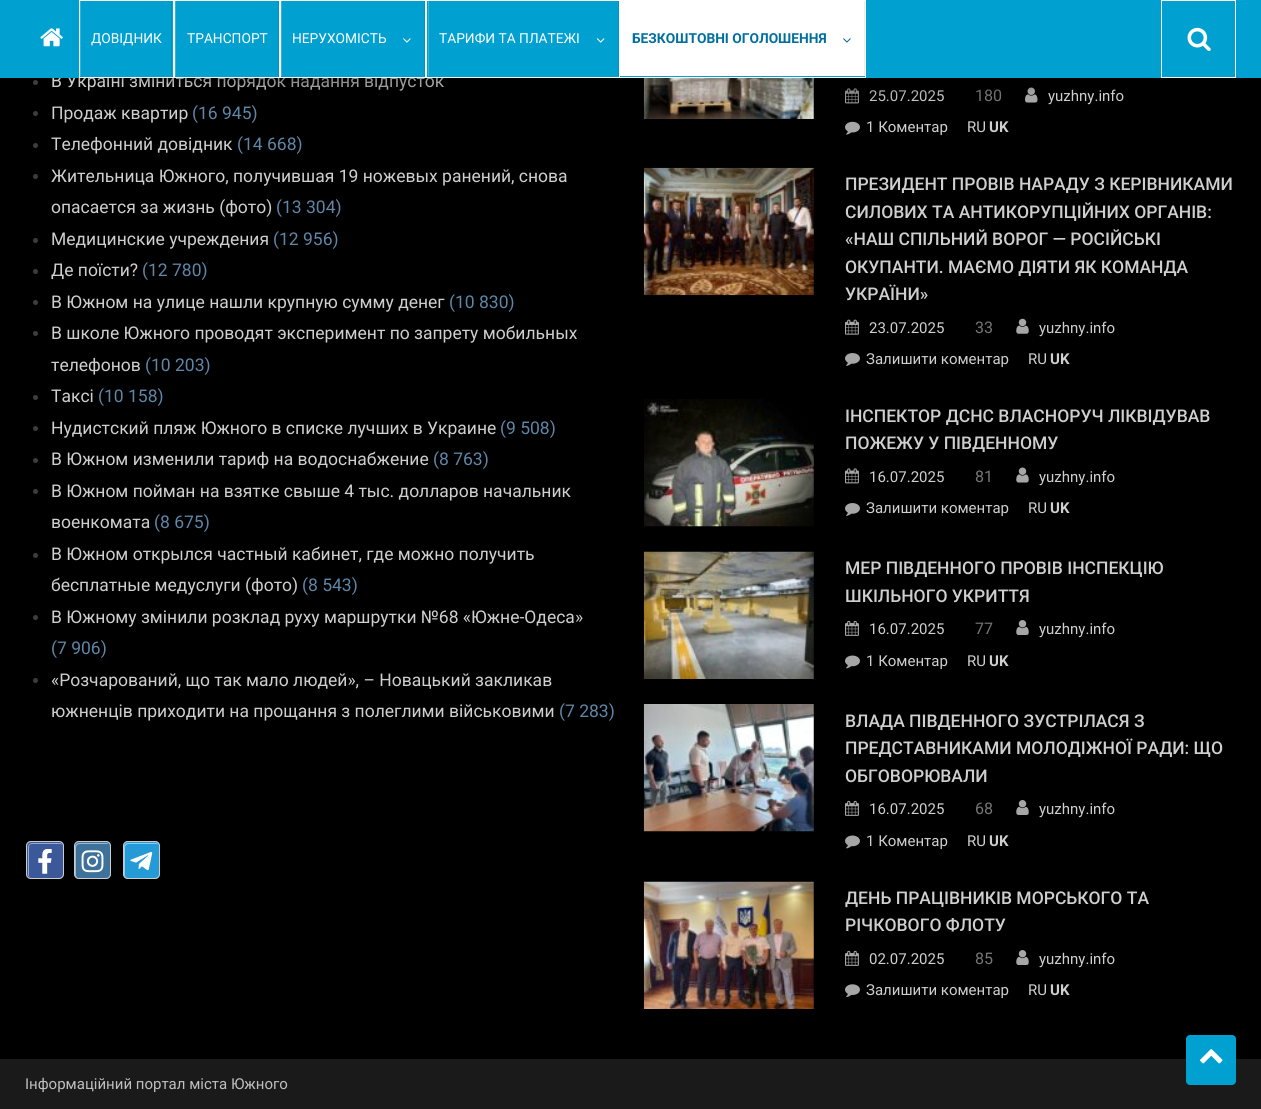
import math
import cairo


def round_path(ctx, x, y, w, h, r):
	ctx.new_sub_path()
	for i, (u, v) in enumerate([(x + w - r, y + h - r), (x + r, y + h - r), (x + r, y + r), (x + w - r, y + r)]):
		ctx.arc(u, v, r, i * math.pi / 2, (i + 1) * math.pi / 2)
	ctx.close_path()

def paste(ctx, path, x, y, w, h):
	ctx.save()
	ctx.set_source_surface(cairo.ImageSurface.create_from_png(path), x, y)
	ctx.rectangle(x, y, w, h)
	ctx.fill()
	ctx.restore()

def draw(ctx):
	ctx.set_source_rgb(0, 0, 0)
	ctx.paint()
	ctx.select_font_face('Roboto')
	ctx.set_font_size(17.5)
	ctx.set_source_rgb(0.812, 0.812, 0.812)
	ctx.move_to(51, 87)
	ctx.show_text('В Україні зміниться порядок надання відпусток')
	ctx.set_source_rgb(0, 0.627, 0.82)
	ctx.rectangle(0, 0, 1261, 78)
	ctx.fill()
	paste(ctx, 'media/1.png', 40, 28, 23, 19)
	ctx.rectangle(79.5, 0.5, 94, 77)
	ctx.set_source_rgb(1, 1, 1)
	ctx.set_line_width(1)
	ctx.stroke()
	ctx.set_source_rgb(0, 0.576, 0.753)
	ctx.rectangle(171, 1, 1, 75)
	ctx.fill()
	ctx.set_source_rgb(0.2, 0.702, 0.855)
	ctx.rectangle(80, 1, 1, 75)
	ctx.fill()
	ctx.set_font_size(13.75)
	ctx.set_source_rgb(1, 1, 1)
	ctx.move_to(91, 43)
	ctx.show_text('ДОВІДНИК')
	ctx.rectangle(174.5, 0.5, 105, 77)
	ctx.stroke()
	ctx.set_source_rgb(0, 0.576, 0.753)
	ctx.rectangle(278, 1, 1, 75)
	ctx.fill()
	ctx.set_source_rgb(0.2, 0.702, 0.855)
	ctx.rectangle(175, 1, 1, 75)
	ctx.fill()
	ctx.set_source_rgb(1, 1, 1)
	ctx.move_to(187, 43)
	ctx.show_text('ТРАНСПОРТ')
	ctx.rectangle(280.5, 0.5, 145, 77)
	ctx.stroke()
	ctx.set_source_rgb(0, 0.576, 0.753)
	ctx.rectangle(424, 1, 1, 75)
	ctx.fill()
	ctx.set_source_rgb(0.2, 0.702, 0.855)
	ctx.rectangle(281, 1, 1, 75)
	ctx.fill()
	ctx.set_source_rgb(1, 1, 1)
	ctx.move_to(292, 43)
	ctx.show_text('НЕРУХОМІСТЬ')
	paste(ctx, 'media/2.png', 403, 38, 8, 5)
	ctx.rectangle(426.5, 0.5, 193, 77)
	ctx.stroke()
	ctx.set_source_rgb(0, 0.576, 0.753)
	ctx.rectangle(618, 1, 1, 75)
	ctx.fill()
	ctx.set_source_rgb(0.2, 0.702, 0.855)
	ctx.rectangle(428, 1, 1, 75)
	ctx.fill()
	ctx.set_source_rgb(1, 1, 1)
	ctx.move_to(439, 43)
	ctx.show_text('ТАРИФИ ТА ПЛАТЕЖІ')
	paste(ctx, 'media/3.png', 596, 38, 9, 5)
	ctx.rectangle(619.5, 0.5, 246, 77)
	ctx.stroke()
	ctx.rectangle(620, 1, 244, 75)
	ctx.fill()
	ctx.set_source_rgb(0.922, 0.922, 0.922)
	ctx.rectangle(864, 1, 1, 75)
	ctx.fill()
	ctx.select_font_face('Roboto', cairo.FONT_SLANT_NORMAL, cairo.FONT_WEIGHT_BOLD)
	ctx.set_source_rgb(0, 0.431, 0.624)
	ctx.move_to(632, 43)
	ctx.show_text('БЕЗКОШТОВНІ ОГОЛОШЕННЯ')
	paste(ctx, 'media/4.png', 843, 38, 8, 5)
	ctx.rectangle(1161.5, 0.5, 74, 77)
	ctx.set_source_rgb(1, 1, 1)
	ctx.stroke()
	paste(ctx, 'media/5.png', 1187, 27, 24, 24)
	ctx.select_font_face('Roboto')
	ctx.set_font_size(17.5)
	ctx.set_source_rgb(0.812, 0.812, 0.812)
	ctx.move_to(51, 119)
	ctx.show_text('Продаж квартир')
	ctx.set_source_rgb(0.373, 0.525, 0.655)
	ctx.move_to(192, 119)
	ctx.show_text('(16 945)')
	paste(ctx, 'media/10.png', 643, 78, 171, 41)
	paste(ctx, 'media/11.png', 845, 88, 14, 16)
	ctx.set_font_size(15)
	ctx.set_source_rgb(0.812, 0.812, 0.812)
	ctx.move_to(869, 101)
	ctx.show_text('25.07.2025')
	ctx.set_font_size(16)
	ctx.set_source_rgb(0.463, 0.463, 0.463)
	ctx.move_to(975, 101)
	ctx.show_text('180')
	paste(ctx, 'media/12.png', 1025, 87, 13, 16)
	paste(ctx, 'media/6.png', 59, 78, 976, 33)
	ctx.set_source_rgb(0.239, 0.239, 0.239)
	ctx.arc(35.5, 82.5, 2.5, 0, 2 * math.pi)
	ctx.fill()
	ctx.arc(35.5, 113.5, 2.5, 0, 2 * math.pi)
	ctx.fill()
	ctx.arc(35.5, 145.5, 2.5, 0, 2 * math.pi)
	ctx.fill()
	ctx.set_font_size(17.5)
	ctx.set_source_rgb(0.812, 0.812, 0.812)
	ctx.move_to(51, 150)
	ctx.show_text('Телефонний довідник')
	ctx.set_source_rgb(0.373, 0.525, 0.655)
	ctx.move_to(237, 150)
	ctx.show_text('(14 668)')
	ctx.set_source_rgb(0.239, 0.239, 0.239)
	ctx.new_path()
	ctx.arc(35.5, 176.5, 2.5, 0, 2 * math.pi)
	ctx.fill()
	ctx.set_source_rgb(0.812, 0.812, 0.812)
	ctx.move_to(51, 182)
	ctx.show_text('Жительница Южного, получившая 19 ножевых ранений, снова')
	ctx.move_to(51, 213)
	ctx.show_text('опасается за жизнь (фото)')
	ctx.set_source_rgb(0.373, 0.525, 0.655)
	ctx.move_to(276, 213)
	ctx.show_text('(13 304)')
	ctx.set_source_rgb(0.239, 0.239, 0.239)
	ctx.new_path()
	ctx.arc(35.5, 240.5, 2.5, 0, 2 * math.pi)
	ctx.fill()
	ctx.set_source_rgb(0.812, 0.812, 0.812)
	ctx.move_to(51, 245)
	ctx.show_text('Медицинские учреждения')
	ctx.set_source_rgb(0.373, 0.525, 0.655)
	ctx.move_to(273, 245)
	ctx.show_text('(12 956)')
	ctx.set_source_rgb(0.239, 0.239, 0.239)
	ctx.new_path()
	ctx.arc(35.5, 271.5, 2.5, 0, 2 * math.pi)
	ctx.fill()
	ctx.set_source_rgb(0.812, 0.812, 0.812)
	ctx.move_to(51, 276)
	ctx.show_text('Де поїсти?')
	ctx.set_source_rgb(0.373, 0.525, 0.655)
	ctx.move_to(142, 276)
	ctx.show_text('(12 780)')
	ctx.set_source_rgb(0.239, 0.239, 0.239)
	ctx.new_path()
	ctx.arc(35.5, 302.5, 2.5, 0, 2 * math.pi)
	ctx.fill()
	ctx.set_source_rgb(0.812, 0.812, 0.812)
	ctx.move_to(51, 308)
	ctx.show_text('В Южном на улице нашли крупную сумму денег')
	ctx.set_source_rgb(0.373, 0.525, 0.655)
	ctx.move_to(449, 308)
	ctx.show_text('(10 830)')
	ctx.set_source_rgb(0.239, 0.239, 0.239)
	ctx.new_path()
	ctx.arc(35.5, 333.5, 2.5, 0, 2 * math.pi)
	ctx.fill()
	ctx.set_source_rgb(0.812, 0.812, 0.812)
	ctx.move_to(51, 339)
	ctx.show_text('В школе Южного проводят эксперимент по запрету мобильных')
	ctx.move_to(51, 371)
	ctx.show_text('телефонов')
	ctx.set_source_rgb(0.373, 0.525, 0.655)
	ctx.move_to(145, 371)
	ctx.show_text('(10 203)')
	ctx.set_source_rgb(0.239, 0.239, 0.239)
	ctx.new_path()
	ctx.arc(35.5, 397.5, 2.5, 0, 2 * math.pi)
	ctx.fill()
	ctx.set_source_rgb(0.812, 0.812, 0.812)
	ctx.move_to(51, 402)
	ctx.show_text('Таксі')
	ctx.set_source_rgb(0.373, 0.525, 0.655)
	ctx.move_to(98, 402)
	ctx.show_text('(10 158)')
	ctx.set_source_rgb(0.239, 0.239, 0.239)
	ctx.new_path()
	ctx.arc(35.5, 428.5, 2.5, 0, 2 * math.pi)
	ctx.fill()
	ctx.set_source_rgb(0.812, 0.812, 0.812)
	ctx.move_to(51, 434)
	ctx.show_text('Нудистский пляж Южного в списке лучших в Украине')
	ctx.set_source_rgb(0.373, 0.525, 0.655)
	ctx.move_to(500, 434)
	ctx.show_text('(9 508)')
	ctx.set_source_rgb(0.239, 0.239, 0.239)
	ctx.new_path()
	ctx.arc(35.5, 460.5, 2.5, 0, 2 * math.pi)
	ctx.fill()
	ctx.set_source_rgb(0.812, 0.812, 0.812)
	ctx.move_to(51, 465)
	ctx.show_text('В Южном изменили тариф на водоснабжение')
	ctx.set_source_rgb(0.373, 0.525, 0.655)
	ctx.move_to(433, 465)
	ctx.show_text('(8 763)')
	ctx.set_source_rgb(0.239, 0.239, 0.239)
	ctx.new_path()
	ctx.arc(35.5, 491.5, 2.5, 0, 2 * math.pi)
	ctx.fill()
	ctx.set_source_rgb(0.812, 0.812, 0.812)
	ctx.move_to(51, 497)
	ctx.show_text('В Южном пойман на взятке свыше 4 тыс. долларов начальник')
	ctx.move_to(51, 528)
	ctx.show_text('военкомата')
	ctx.set_source_rgb(0.373, 0.525, 0.655)
	ctx.move_to(154, 528)
	ctx.show_text('(8 675)')
	ctx.set_source_rgb(0.239, 0.239, 0.239)
	ctx.new_path()
	ctx.arc(35.5, 555.5, 2.5, 0, 2 * math.pi)
	ctx.fill()
	ctx.set_source_rgb(0.812, 0.812, 0.812)
	ctx.move_to(51, 560)
	ctx.show_text('В Южном открылся частный кабинет, где можно получить')
	ctx.move_to(51, 591)
	ctx.show_text('бесплатные медуслуги (фото)')
	ctx.set_source_rgb(0.373, 0.525, 0.655)
	ctx.move_to(302, 591)
	ctx.show_text('(8 543)')
	ctx.set_source_rgb(0.239, 0.239, 0.239)
	ctx.new_path()
	ctx.arc(35.5, 617.5, 2.5, 0, 2 * math.pi)
	ctx.fill()
	ctx.set_source_rgb(0.812, 0.812, 0.812)
	ctx.move_to(51, 623)
	ctx.show_text('В Южному змінили розклад руху маршрутки №68 «Южне-Одеса»')
	ctx.set_source_rgb(0.373, 0.525, 0.655)
	ctx.move_to(51, 654)
	ctx.show_text('(7 906)')
	ctx.set_source_rgb(0.239, 0.239, 0.239)
	ctx.new_path()
	ctx.arc(35.5, 680.5, 2.5, 0, 2 * math.pi)
	ctx.fill()
	ctx.set_source_rgb(0.812, 0.812, 0.812)
	ctx.move_to(51, 686)
	ctx.show_text('«Розчарований, що так мало людей», – Новацький закликав')
	ctx.move_to(51, 717)
	ctx.show_text('южненців приходити на прощання з полеглими військовими')
	ctx.set_source_rgb(0.373, 0.525, 0.655)
	ctx.move_to(559, 717)
	ctx.show_text('(7 283)')
	ctx.set_source_rgb(0.231, 0.349, 0.596)
	round_path(ctx, 26, 841, 38, 38, 5)
	ctx.fill()
	ctx.set_source_rgb(0.616, 0.675, 0.8)
	ctx.new_path()
	ctx.move_to(32, 844)
	ctx.line_to(60, 844)
	ctx.line_to(62, 844.5)
	ctx.curve_to(61.5, 843.5, 60, 843, 59, 843)
	ctx.line_to(32, 843)
	ctx.curve_to(30, 843, 28, 845, 28, 847)
	ctx.line_to(28, 874)
	ctx.curve_to(28, 875, 28.5, 876.5, 29.5, 877)
	ctx.line_to(29, 875)
	ctx.line_to(29, 848)
	ctx.curve_to(29, 845, 30, 844, 32, 844)
	ctx.close_path()
	ctx.fill()
	round_path(ctx, 26.5, 841.5, 37, 37, 4.5)
	ctx.set_source_rgb(0.8, 0.8, 0.8)
	ctx.stroke()
	paste(ctx, 'media/7.png', 38, 849, 14, 25)
	ctx.set_source_rgb(0.247, 0.447, 0.608)
	round_path(ctx, 74, 841, 37, 38, 5)
	ctx.fill()
	ctx.set_source_rgb(0.624, 0.725, 0.804)
	ctx.new_path()
	ctx.move_to(80, 844)
	ctx.line_to(108.5, 844)
	ctx.curve_to(108, 843.5, 107, 843, 106, 843)
	ctx.line_to(79, 843)
	ctx.curve_to(77, 843, 75, 845, 75, 847)
	ctx.line_to(75, 874)
	ctx.curve_to(75, 875.5, 76, 877, 77, 877.5)
	ctx.curve_to(76.5, 876.5, 76, 876, 76, 875)
	ctx.line_to(76, 848)
	ctx.curve_to(76, 845, 78, 844, 80, 844)
	ctx.close_path()
	ctx.fill()
	round_path(ctx, 74.5, 841.5, 36, 37, 4.5)
	ctx.set_source_rgb(0.8, 0.8, 0.8)
	ctx.stroke()
	paste(ctx, 'media/8.png', 81, 850, 23, 23)
	ctx.set_source_rgb(0.141, 0.608, 0.843)
	round_path(ctx, 123, 841, 37, 38, 5)
	ctx.fill()
	ctx.set_source_rgb(0.573, 0.804, 0.922)
	ctx.new_path()
	ctx.move_to(129, 844)
	ctx.line_to(156, 844)
	ctx.line_to(158, 844.5)
	ctx.curve_to(157.5, 843.5, 156, 843, 155, 843)
	ctx.line_to(128, 843)
	ctx.curve_to(126, 843, 124, 845, 124, 847)
	ctx.line_to(124, 874)
	ctx.curve_to(124, 875.5, 125, 877, 126, 877.5)
	ctx.curve_to(125.5, 876.5, 125, 876, 125, 875)
	ctx.line_to(125, 848)
	ctx.curve_to(125, 845, 127, 844, 129, 844)
	ctx.close_path()
	ctx.fill()
	round_path(ctx, 123.5, 841.5, 36, 37, 4.5)
	ctx.set_source_rgb(0.8, 0.8, 0.8)
	ctx.stroke()
	paste(ctx, 'media/9.png', 130, 851, 23, 20)
	ctx.set_font_size(15)
	ctx.set_source_rgb(0.812, 0.812, 0.812)
	ctx.move_to(1048, 101)
	ctx.show_text('yuzhny.info')
	paste(ctx, 'media/13.png', 845, 121, 15, 14)
	ctx.move_to(866, 132)
	ctx.show_text('1 Коментар')
	ctx.move_to(967, 132)
	ctx.show_text('RU')
	ctx.select_font_face('Roboto', cairo.FONT_SLANT_NORMAL, cairo.FONT_WEIGHT_BOLD)
	ctx.move_to(989, 132)
	ctx.show_text('UK')
	paste(ctx, 'media/14.png', 643, 167, 171, 129)
	ctx.select_font_face('Roboto Medium')
	ctx.set_font_size(17.5)
	for x, y, s in [
		(845, 190, 'ПРЕЗИДЕНТ ПРОВІВ НАРАДУ З КЕРІВНИКАМИ'),
		(845, 218, 'СИЛОВИХ ТА АНТИКОРУПЦІЙНИХ ОРГАНІВ:'),
		(845, 245, '«НАШ СПІЛЬНИЙ ВОРОГ — РОСІЙСЬКІ'),
		(845, 273, 'ОКУПАНТИ. МАЄМО ДІЯТИ ЯК КОМАНДА'),
		(845, 300, 'УКРАЇНИ»'),
	]:
		ctx.move_to(x, y)
		ctx.show_text(s)
	paste(ctx, 'media/15.png', 845, 319, 14, 16)
	ctx.select_font_face('Roboto')
	ctx.set_font_size(15)
	ctx.move_to(869, 333)
	ctx.show_text('23.07.2025')
	ctx.set_font_size(16)
	ctx.set_source_rgb(0.463, 0.463, 0.463)
	ctx.move_to(975, 333)
	ctx.show_text('33')
	paste(ctx, 'media/16.png', 1016, 318, 13, 16)
	ctx.set_font_size(15)
	ctx.set_source_rgb(0.812, 0.812, 0.812)
	ctx.move_to(1039, 333)
	ctx.show_text('yuzhny.info')
	paste(ctx, 'media/17.png', 845, 353, 15, 13)
	ctx.move_to(866, 364)
	ctx.show_text('Залишити коментар')
	ctx.move_to(1028, 364)
	ctx.show_text('RU')
	ctx.select_font_face('Roboto', cairo.FONT_SLANT_NORMAL, cairo.FONT_WEIGHT_BOLD)
	ctx.move_to(1050, 364)
	ctx.show_text('UK')
	paste(ctx, 'media/18.png', 644, 399, 170, 128)
	ctx.select_font_face('Roboto Medium')
	ctx.set_font_size(17.5)
	ctx.move_to(845, 422)
	ctx.show_text('ІНСПЕКТОР ДСНС ВЛАСНОРУЧ ЛІКВІДУВАВ')
	ctx.move_to(845, 449)
	ctx.show_text('ПОЖЕЖУ У ПІВДЕННОМУ')
	paste(ctx, 'media/11.png', 845, 468, 14, 16)
	ctx.select_font_face('Roboto')
	ctx.set_font_size(15)
	ctx.move_to(869, 482)
	ctx.show_text('16.07.2025')
	ctx.set_font_size(16)
	ctx.set_source_rgb(0.463, 0.463, 0.463)
	ctx.move_to(975, 482)
	ctx.show_text('81')
	paste(ctx, 'media/19.png', 1016, 467, 13, 16)
	ctx.set_font_size(15)
	ctx.set_source_rgb(0.812, 0.812, 0.812)
	ctx.move_to(1039, 482)
	ctx.show_text('yuzhny.info')
	paste(ctx, 'media/17.png', 845, 503, 15, 13)
	ctx.move_to(866, 513)
	ctx.show_text('Залишити коментар')
	ctx.move_to(1028, 513)
	ctx.show_text('RU')
	ctx.select_font_face('Roboto', cairo.FONT_SLANT_NORMAL, cairo.FONT_WEIGHT_BOLD)
	ctx.move_to(1050, 513)
	ctx.show_text('UK')
	paste(ctx, 'media/20.png', 643, 551, 171, 128)
	ctx.select_font_face('Roboto Medium')
	ctx.set_font_size(17.5)
	ctx.move_to(845, 574)
	ctx.show_text('МЕР ПІВДЕННОГО ПРОВІВ ІНСПЕКЦІЮ')
	ctx.move_to(845, 602)
	ctx.show_text('ШКІЛЬНОГО УКРИТТЯ')
	paste(ctx, 'media/21.png', 845, 620, 14, 16)
	ctx.select_font_face('Roboto')
	ctx.set_font_size(15)
	ctx.move_to(869, 634)
	ctx.show_text('16.07.2025')
	ctx.set_font_size(16)
	ctx.set_source_rgb(0.463, 0.463, 0.463)
	ctx.move_to(975, 634)
	ctx.show_text('77')
	paste(ctx, 'media/22.png', 1016, 620, 13, 15)
	ctx.set_font_size(15)
	ctx.set_source_rgb(0.812, 0.812, 0.812)
	ctx.move_to(1039, 634)
	ctx.show_text('yuzhny.info')
	paste(ctx, 'media/23.png', 845, 655, 15, 14)
	ctx.move_to(866, 666)
	ctx.show_text('1 Коментар')
	ctx.move_to(967, 666)
	ctx.show_text('RU')
	ctx.select_font_face('Roboto', cairo.FONT_SLANT_NORMAL, cairo.FONT_WEIGHT_BOLD)
	ctx.move_to(989, 666)
	ctx.show_text('UK')
	paste(ctx, 'media/24.png', 643, 704, 171, 128)
	ctx.select_font_face('Roboto Medium')
	ctx.set_font_size(17.5)
	for x, y, s in [
		(845, 727, 'ВЛАДА ПІВДЕННОГО ЗУСТРІЛАСЯ З'),
		(845, 754, 'ПРЕДСТАВНИКАМИ МОЛОДІЖНОЇ РАДИ: ЩО'),
		(845, 782, 'ОБГОВОРЮВАЛИ'),
	]:
		ctx.move_to(x, y)
		ctx.show_text(s)
	paste(ctx, 'media/21.png', 845, 800, 14, 16)
	ctx.select_font_face('Roboto')
	ctx.set_font_size(15)
	ctx.move_to(869, 814)
	ctx.show_text('16.07.2025')
	ctx.set_font_size(16)
	ctx.set_source_rgb(0.463, 0.463, 0.463)
	ctx.move_to(975, 814)
	ctx.show_text('68')
	paste(ctx, 'media/22.png', 1016, 800, 13, 15)
	ctx.set_font_size(15)
	ctx.set_source_rgb(0.812, 0.812, 0.812)
	ctx.move_to(1039, 814)
	ctx.show_text('yuzhny.info')
	paste(ctx, 'media/23.png', 845, 835, 15, 14)
	ctx.move_to(866, 846)
	ctx.show_text('1 Коментар')
	ctx.move_to(967, 846)
	ctx.show_text('RU')
	ctx.select_font_face('Roboto', cairo.FONT_SLANT_NORMAL, cairo.FONT_WEIGHT_BOLD)
	ctx.move_to(989, 846)
	ctx.show_text('UK')
	paste(ctx, 'media/25.png', 643, 881, 171, 128)
	ctx.select_font_face('Roboto Medium')
	ctx.set_font_size(17.5)
	ctx.move_to(845, 904)
	ctx.show_text('ДЕНЬ ПРАЦІВНИКІВ МОРСЬКОГО ТА')
	ctx.move_to(845, 931)
	ctx.show_text('РІЧКОВОГО ФЛОТУ')
	paste(ctx, 'media/21.png', 845, 950, 14, 16)
	ctx.select_font_face('Roboto')
	ctx.set_font_size(15)
	ctx.move_to(869, 964)
	ctx.show_text('02.07.2025')
	ctx.set_font_size(16)
	ctx.set_source_rgb(0.463, 0.463, 0.463)
	ctx.move_to(975, 964)
	ctx.show_text('85')
	paste(ctx, 'media/22.png', 1016, 950, 13, 15)
	ctx.set_font_size(15)
	ctx.set_source_rgb(0.812, 0.812, 0.812)
	ctx.move_to(1039, 964)
	ctx.show_text('yuzhny.info')
	paste(ctx, 'media/26.png', 845, 984, 15, 14)
	ctx.move_to(866, 995)
	ctx.show_text('Залишити коментар')
	ctx.move_to(1028, 995)
	ctx.show_text('RU')
	ctx.select_font_face('Roboto', cairo.FONT_SLANT_NORMAL, cairo.FONT_WEIGHT_BOLD)
	ctx.move_to(1050, 995)
	ctx.show_text('UK')
	ctx.set_source_rgb(0.102, 0.102, 0.102)
	ctx.rectangle(0, 1059, 1261, 50)
	ctx.fill()
	ctx.select_font_face('Roboto')
	ctx.set_source_rgb(0.749, 0.749, 0.749)
	ctx.move_to(25, 1089)
	ctx.show_text('Інформаційний портал міста Южного')
	ctx.set_source_rgb(0, 0.627, 0.82)
	round_path(ctx, 1186, 1035, 50, 50, 4)
	ctx.fill()
	paste(ctx, 'media/27.png', 1200, 1049, 23, 15)


surface = cairo.ImageSurface(cairo.FORMAT_RGB24, 1261, 1109)
ctx = cairo.Context(surface)
options = cairo.FontOptions()
options.set_hint_metrics(cairo.HINT_METRICS_OFF)
options.set_hint_style(cairo.HINT_STYLE_NONE)
ctx.set_font_options(options)
ctx.set_miter_limit(4)
draw(ctx)
surface.write_to_png('image.png')
